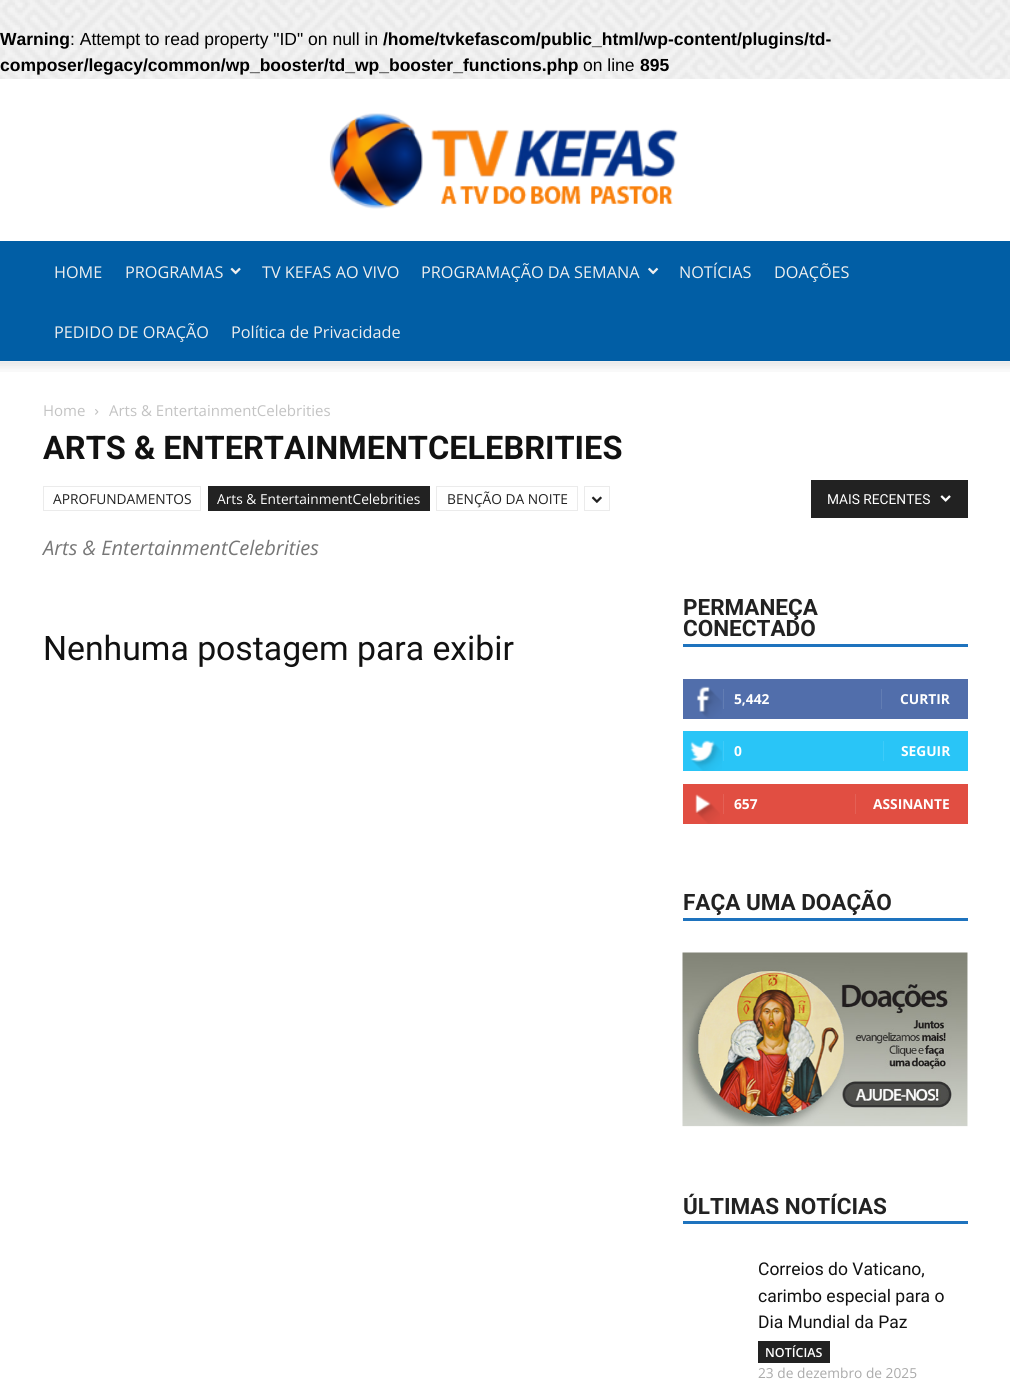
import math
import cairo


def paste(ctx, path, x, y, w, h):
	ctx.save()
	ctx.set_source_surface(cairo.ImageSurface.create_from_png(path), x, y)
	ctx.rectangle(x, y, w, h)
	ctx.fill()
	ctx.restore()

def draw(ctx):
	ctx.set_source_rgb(1, 1, 1)
	ctx.paint()
	paste(ctx, 'media/1.png', 0, 0, 1010, 79)
	ctx.select_font_face('Liberation Sans', cairo.FONT_SLANT_NORMAL, cairo.FONT_WEIGHT_BOLD)
	ctx.set_font_size(17.5)
	ctx.set_source_rgb(0, 0, 0)
	ctx.move_to(0, 45)
	ctx.show_text('Warning')
	ctx.select_font_face('Liberation Sans')
	ctx.move_to(70, 45)
	ctx.show_text(': Attempt to read property "ID" on null in')
	ctx.select_font_face('Liberation Sans', cairo.FONT_SLANT_NORMAL, cairo.FONT_WEIGHT_BOLD)
	ctx.move_to(383, 45)
	ctx.show_text('/home/tvkefascom/public_html/wp-content/plugins/td-')
	ctx.move_to(0, 71)
	ctx.show_text('composer/legacy/common/wp_booster/td_wp_booster_functions.php')
	ctx.select_font_face('Liberation Sans')
	ctx.move_to(583, 71)
	ctx.show_text('on line')
	ctx.select_font_face('Liberation Sans', cairo.FONT_SLANT_NORMAL, cairo.FONT_WEIGHT_BOLD)
	ctx.move_to(640, 71)
	ctx.show_text('895')
	paste(ctx, 'media/2.png', 329, 113, 349, 96)
	ctx.set_source_rgb(0.004, 0.369, 0.647)
	ctx.rectangle(0, 241, 1010, 120)
	ctx.fill()
	ctx.select_font_face('Open Sans')
	ctx.set_font_size(16.25)
	ctx.set_source_rgb(0.937, 0.937, 0.937)
	ctx.move_to(54, 278)
	ctx.show_text('HOME')
	ctx.move_to(125, 278)
	ctx.show_text('PROGRAMAS')
	paste(ctx, 'media/3.png', 230, 267, 11, 8)
	ctx.move_to(262, 278)
	ctx.show_text('TV KEFAS AO VIVO')
	ctx.move_to(421, 278)
	ctx.show_text('PROGRAMAÇÃO DA SEMANA')
	paste(ctx, 'media/4.png', 648, 267, 11, 8)
	for x, y, s in [
		(679, 278, 'NOTÍCIAS'),
		(774, 278, 'DOAÇÕES'),
		(54, 338, 'PEDIDO DE ORAÇÃO'),
		(231, 338, 'Política de Privacidade'),
	]:
		ctx.move_to(x, y)
		ctx.show_text(s)
	paste(ctx, 'media/5.png', 0, 361, 1010, 11)
	ctx.set_font_size(15)
	ctx.set_source_rgb(0.765, 0.765, 0.765)
	ctx.move_to(43, 416)
	ctx.show_text('Home')
	paste(ctx, 'media/6.png', 95, 409, 4, 6)
	ctx.move_to(109, 416)
	ctx.show_text('Arts & EntertainmentCelebrities')
	ctx.select_font_face('Roboto', cairo.FONT_SLANT_NORMAL, cairo.FONT_WEIGHT_BOLD)
	ctx.set_font_size(32.5)
	ctx.set_source_rgb(0.067, 0.067, 0.067)
	ctx.move_to(43, 459)
	ctx.show_text('ARTS & ENTERTAINMENTCELEBRITIES')
	ctx.rectangle(43.5, 486.5, 157, 24)
	ctx.set_source_rgb(0.918, 0.918, 0.918)
	ctx.set_line_width(1)
	ctx.stroke()
	ctx.select_font_face('Open Sans')
	ctx.set_font_size(13.75)
	ctx.set_source_rgb(0.133, 0.133, 0.133)
	ctx.move_to(53, 504)
	ctx.show_text('APROFUNDAMENTOS')
	ctx.rectangle(208, 486, 222, 25)
	ctx.fill()
	ctx.set_source_rgb(1, 1, 1)
	ctx.move_to(217, 504)
	ctx.show_text('Arts & EntertainmentCelebrities')
	ctx.rectangle(436.5, 486.5, 141, 24)
	ctx.set_source_rgb(0.918, 0.918, 0.918)
	ctx.stroke()
	ctx.set_source_rgb(0.133, 0.133, 0.133)
	ctx.move_to(447, 504)
	ctx.show_text('BENÇÃO DA NOITE')
	ctx.rectangle(584.5, 486.5, 25, 24)
	ctx.set_source_rgb(0.918, 0.918, 0.918)
	ctx.stroke()
	paste(ctx, 'media/7.png', 591, 496, 11, 7)
	ctx.select_font_face('Open Sans', cairo.FONT_SLANT_ITALIC)
	ctx.set_font_size(20)
	ctx.set_source_rgb(0.467, 0.467, 0.467)
	ctx.move_to(43, 555)
	ctx.show_text('Arts & EntertainmentCelebrities')
	ctx.set_source_rgb(0.133, 0.133, 0.133)
	ctx.rectangle(811, 480, 157, 38)
	ctx.fill()
	ctx.select_font_face('Roboto')
	ctx.set_font_size(13.75)
	ctx.set_source_rgb(1, 1, 1)
	ctx.move_to(827, 504)
	ctx.show_text('MAIS RECENTES')
	paste(ctx, 'media/8.png', 940, 495, 11, 7)
	ctx.set_font_size(33.75)
	ctx.set_source_rgb(0.067, 0.067, 0.067)
	ctx.move_to(43, 660)
	ctx.show_text('Nenhuma postagem para exibir')
	ctx.set_source_rgb(0.118, 0.451, 0.745)
	ctx.rectangle(683, 644, 285, 3)
	ctx.fill()
	ctx.select_font_face('Roboto', cairo.FONT_SLANT_NORMAL, cairo.FONT_WEIGHT_BOLD)
	ctx.set_font_size(22.5)
	ctx.set_source_rgb(0.133, 0.133, 0.133)
	ctx.move_to(683, 615)
	ctx.show_text('PERMANEÇA')
	ctx.move_to(683, 636)
	ctx.show_text('CONECTADO')
	ctx.set_source_rgb(0.318, 0.431, 0.671)
	ctx.rectangle(683, 679, 285, 40)
	ctx.fill()
	paste(ctx, 'media/9.png', 696, 686, 26, 32)
	ctx.set_source_rgb(0.384, 0.49, 0.702)
	ctx.rectangle(723, 689, 1, 20)
	ctx.fill()
	ctx.select_font_face('Open Sans', cairo.FONT_SLANT_NORMAL, cairo.FONT_WEIGHT_BOLD)
	ctx.set_font_size(13.75)
	ctx.set_source_rgb(1, 1, 1)
	ctx.move_to(734, 704)
	ctx.show_text('5,442')
	ctx.set_source_rgb(0.384, 0.49, 0.702)
	ctx.rectangle(881, 689, 1, 20)
	ctx.fill()
	ctx.set_source_rgb(1, 1, 1)
	ctx.move_to(900, 704)
	ctx.show_text('CURTIR')
	ctx.set_source_rgb(0.161, 0.773, 0.965)
	ctx.rectangle(683, 731, 285, 40)
	ctx.fill()
	paste(ctx, 'media/10.png', 690, 740, 32, 31)
	ctx.set_source_rgb(0.243, 0.796, 0.969)
	ctx.rectangle(723, 741, 1, 20)
	ctx.fill()
	ctx.set_source_rgb(1, 1, 1)
	ctx.move_to(734, 756)
	ctx.show_text('0')
	ctx.set_source_rgb(0.243, 0.796, 0.969)
	ctx.rectangle(883, 741, 1, 20)
	ctx.fill()
	ctx.set_source_rgb(1, 1, 1)
	ctx.move_to(901, 756)
	ctx.show_text('SEGUIR')
	ctx.set_source_rgb(0.882, 0.306, 0.259)
	ctx.rectangle(683, 784, 285, 40)
	ctx.fill()
	paste(ctx, 'media/11.png', 695, 794, 25, 30)
	ctx.set_source_rgb(0.894, 0.376, 0.333)
	ctx.rectangle(723, 794, 1, 20)
	ctx.fill()
	ctx.set_source_rgb(1, 1, 1)
	ctx.move_to(734, 809)
	ctx.show_text('657')
	ctx.set_source_rgb(0.894, 0.376, 0.333)
	ctx.rectangle(855, 794, 1, 20)
	ctx.fill()
	ctx.set_source_rgb(1, 1, 1)
	ctx.move_to(873, 809)
	ctx.show_text('ASSINANTE')
	ctx.set_source_rgb(0.118, 0.451, 0.745)
	ctx.rectangle(683, 918, 285, 3)
	ctx.fill()
	ctx.select_font_face('Roboto', cairo.FONT_SLANT_NORMAL, cairo.FONT_WEIGHT_BOLD)
	ctx.set_font_size(22.5)
	ctx.set_source_rgb(0.133, 0.133, 0.133)
	ctx.move_to(683, 910)
	ctx.show_text('FAÇA UMA DOAÇÃO')
	paste(ctx, 'media/12.png', 682, 952, 286, 175)
	ctx.set_source_rgb(0.118, 0.451, 0.745)
	ctx.rectangle(683, 1221, 285, 3)
	ctx.fill()
	ctx.set_source_rgb(0.133, 0.133, 0.133)
	ctx.move_to(683, 1214)
	ctx.show_text('ÚLTIMAS NOTÍCIAS')
	ctx.select_font_face('Roboto')
	ctx.set_font_size(17.5)
	ctx.set_source_rgb(0.067, 0.067, 0.067)
	for x, y, s in [
		(758, 1275, 'Correios do Vaticano,'),
		(758, 1302, 'carimbo especial para o'),
		(758, 1328, 'Dia Mundial da Paz'),
	]:
		ctx.move_to(x, y)
		ctx.show_text(s)
	ctx.set_source_rgb(0.133, 0.133, 0.133)
	ctx.rectangle(758, 1341, 72, 22)
	ctx.fill()
	ctx.select_font_face('Open Sans SemiBold')
	ctx.set_font_size(12.5)
	ctx.set_source_rgb(1, 1, 1)
	ctx.move_to(765, 1357)
	ctx.show_text('NOTÍCIAS')
	ctx.select_font_face('Open Sans')
	ctx.set_font_size(13.75)
	ctx.set_source_rgb(0.667, 0.667, 0.667)
	ctx.move_to(758, 1378)
	ctx.show_text('23 de dezembro de 2025')


surface = cairo.ImageSurface(cairo.FORMAT_RGB24, 1010, 1398)
ctx = cairo.Context(surface)
options = cairo.FontOptions()
options.set_hint_metrics(cairo.HINT_METRICS_OFF)
options.set_hint_style(cairo.HINT_STYLE_NONE)
ctx.set_font_options(options)
ctx.set_miter_limit(4)
draw(ctx)
surface.write_to_png('image.png')
